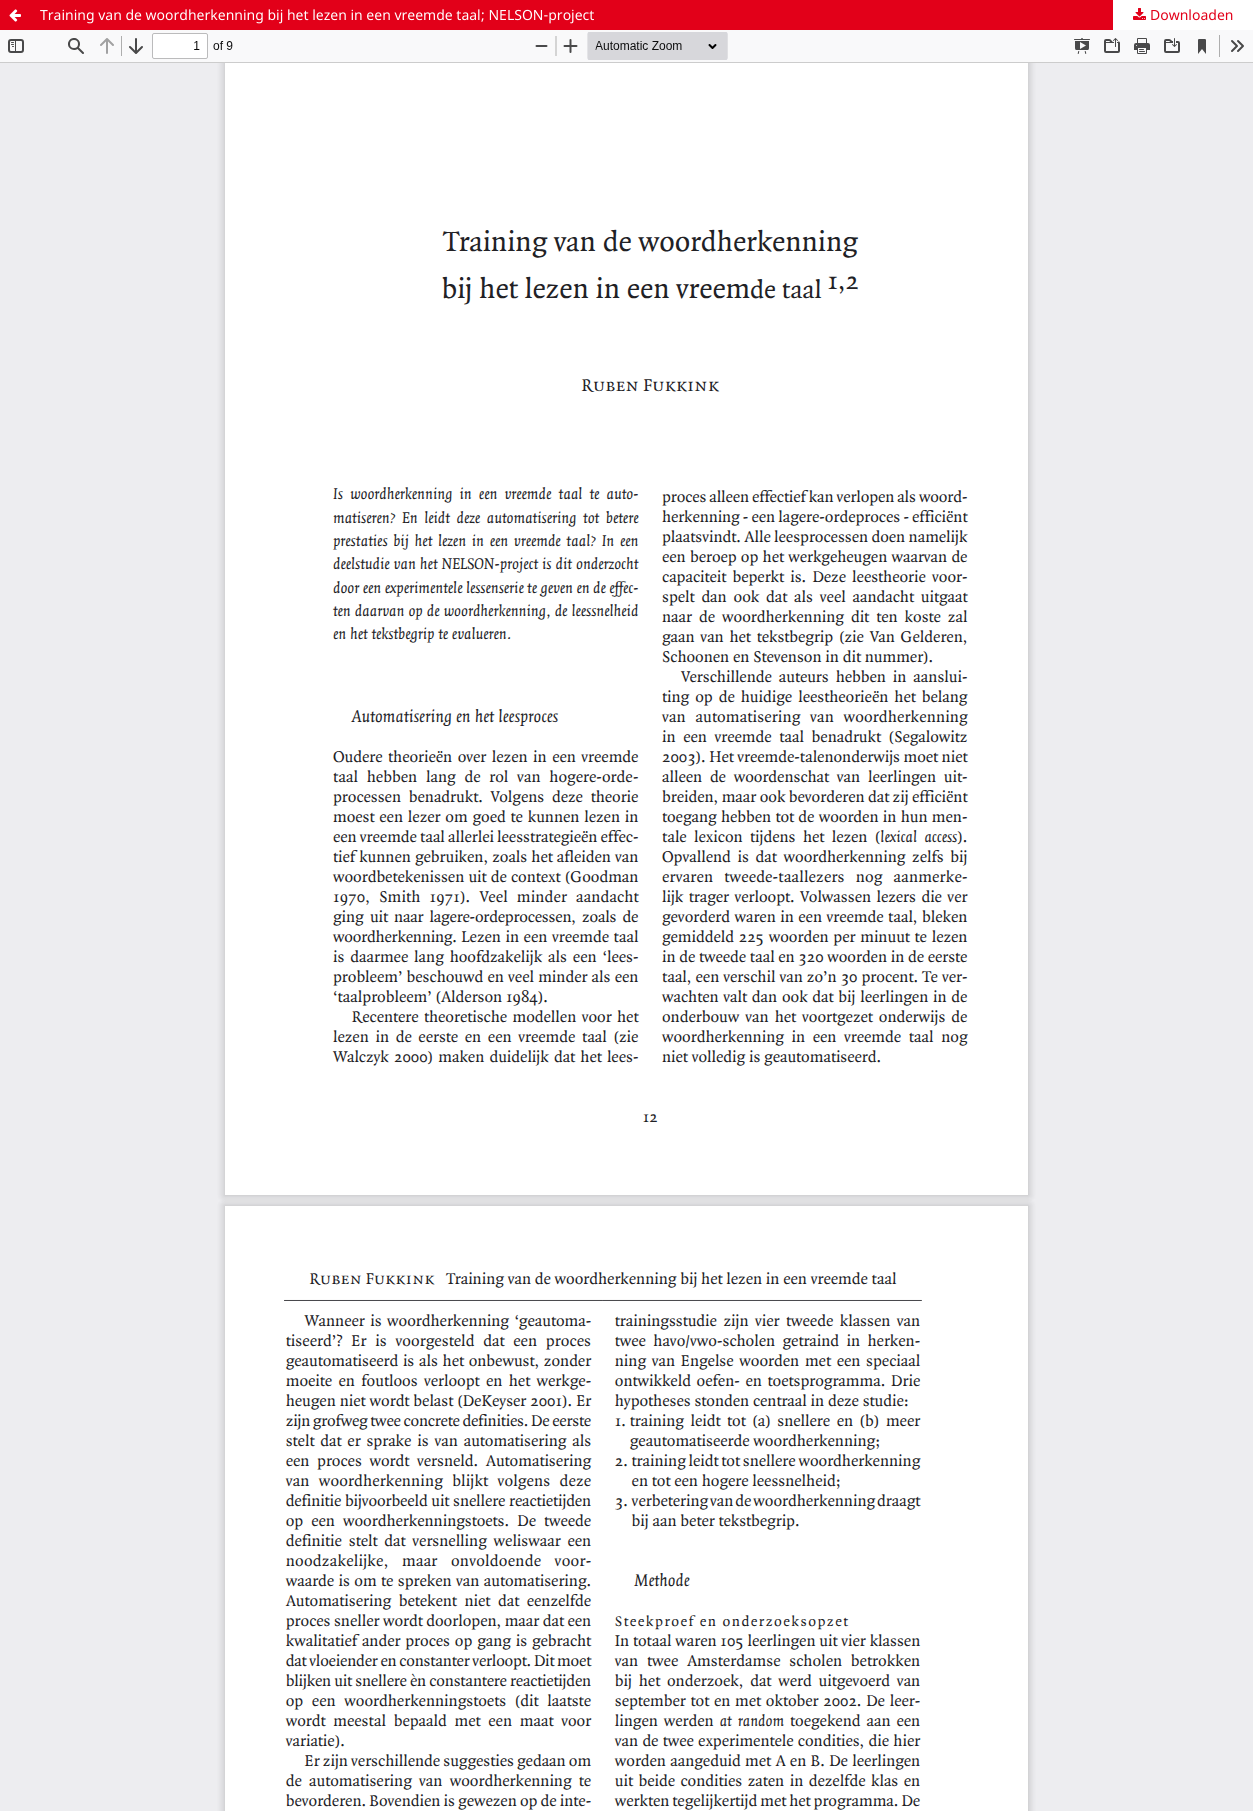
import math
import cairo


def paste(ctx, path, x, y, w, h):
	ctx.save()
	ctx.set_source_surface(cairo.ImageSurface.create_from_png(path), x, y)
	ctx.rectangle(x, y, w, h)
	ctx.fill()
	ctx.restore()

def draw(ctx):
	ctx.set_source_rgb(1, 1, 1)
	ctx.paint()
	ctx.set_source_rgb(0.886, 0, 0.098)
	ctx.rectangle(0, 0, 1113, 30)
	ctx.fill()
	paste(ctx, 'media/1.png', 9, 9, 12, 13)
	ctx.select_font_face('Noto Sans')
	ctx.set_font_size(14)
	ctx.set_source_rgb(1, 1, 1)
	ctx.move_to(40, 20)
	ctx.show_text('Training van de woordherkenning bij het lezen in een vreemde taal; NELSON-project')
	paste(ctx, 'media/2.png', 1133, 8, 13, 12)
	ctx.set_source_rgb(0.886, 0, 0.098)
	ctx.move_to(1150, 20)
	ctx.show_text('Downloaden')
	paste(ctx, 'media/3.png', 0, 30, 1253, 1781)


surface = cairo.ImageSurface(cairo.FORMAT_RGB24, 1253, 1811)
ctx = cairo.Context(surface)
options = cairo.FontOptions()
options.set_hint_metrics(cairo.HINT_METRICS_OFF)
options.set_hint_style(cairo.HINT_STYLE_NONE)
ctx.set_font_options(options)
ctx.set_miter_limit(4)
draw(ctx)
surface.write_to_png('image.png')
